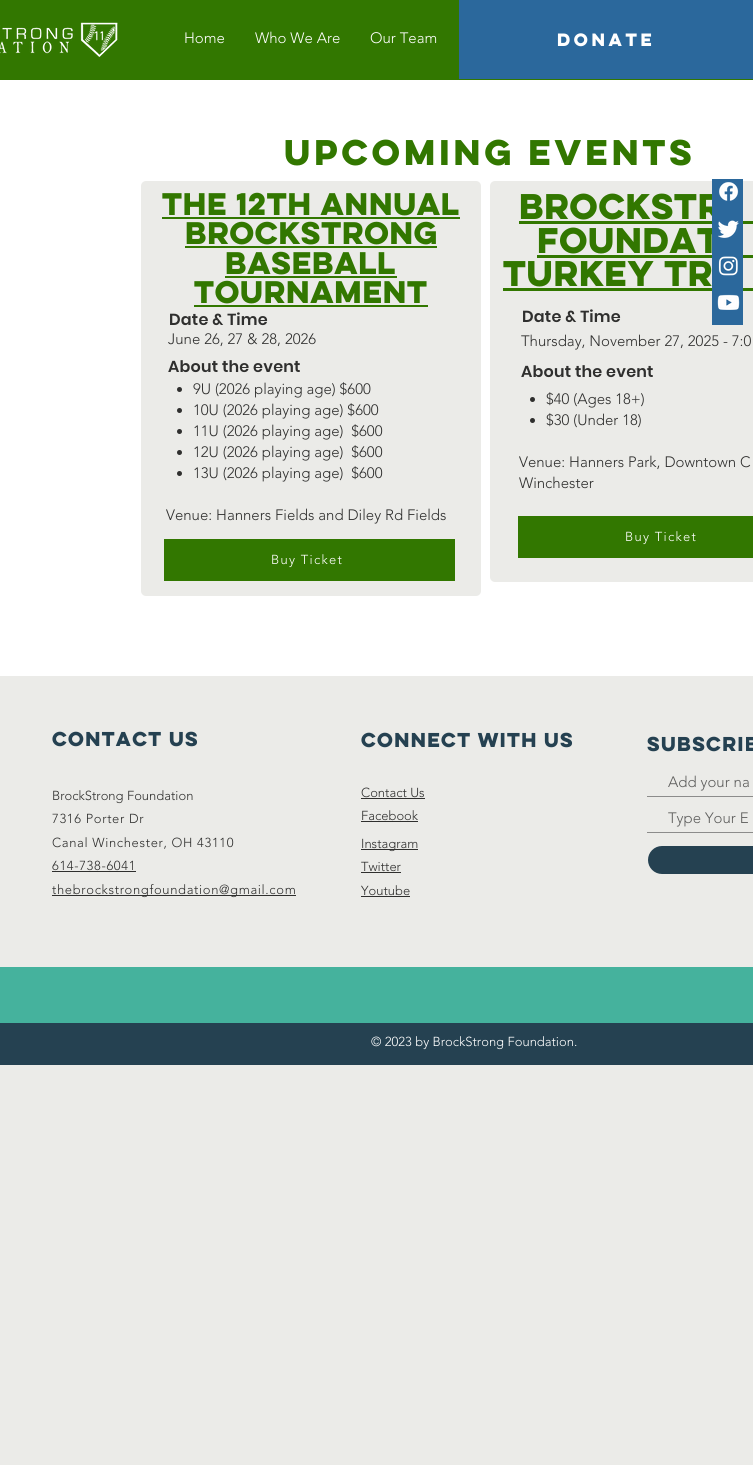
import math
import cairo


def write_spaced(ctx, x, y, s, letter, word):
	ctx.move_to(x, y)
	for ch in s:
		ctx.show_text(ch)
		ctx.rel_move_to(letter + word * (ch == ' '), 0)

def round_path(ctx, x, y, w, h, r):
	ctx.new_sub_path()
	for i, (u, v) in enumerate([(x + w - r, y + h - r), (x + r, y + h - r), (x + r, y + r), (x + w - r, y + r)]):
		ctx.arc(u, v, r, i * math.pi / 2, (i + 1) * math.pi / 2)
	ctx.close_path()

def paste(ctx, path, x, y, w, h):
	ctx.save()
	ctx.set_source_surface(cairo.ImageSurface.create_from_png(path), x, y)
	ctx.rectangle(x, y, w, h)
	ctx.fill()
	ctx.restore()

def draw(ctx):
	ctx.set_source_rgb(0.918, 0.918, 0.91)
	ctx.paint()
	ctx.set_source_rgb(0.196, 0.467, 0)
	ctx.rectangle(0, 0, 753, 80)
	ctx.fill()
	paste(ctx, 'media/1.png', 0, 22, 118, 35)
	ctx.select_font_face('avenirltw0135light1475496 Light')
	ctx.set_font_size(15)
	ctx.set_source_rgb(1, 1, 1)
	for x, y, s in [
		(184, 43, 'Home'),
		(255, 43, 'Who We Are'),
		(370, 43, 'Our Team'),
	]:
		ctx.move_to(x, y)
		ctx.show_text(s)
	ctx.set_source_rgb(0.169, 0.408, 0.612)
	ctx.rectangle(459, 0, 294, 79)
	ctx.fill()
	ctx.select_font_face('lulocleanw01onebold', cairo.FONT_SLANT_NORMAL, cairo.FONT_WEIGHT_BOLD)
	ctx.set_font_size(16)
	ctx.set_source_rgb(1, 1, 1)
	ctx.move_to(557, 46)
	ctx.show_text('DONATE')
	ctx.rectangle(0, 80, 753, 596)
	ctx.fill()
	ctx.set_source_rgb(0.918, 0.918, 0.91)
	round_path(ctx, 490, 181, 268, 401, 5)
	ctx.fill()
	ctx.set_font_size(32)
	ctx.set_source_rgb(0.196, 0.467, 0)
	write_spaced(ctx, 519, 219, 'BrockStr', -6.5, 0)
	ctx.rectangle(519, 221, 234, 3)
	ctx.fill()
	write_spaced(ctx, 537, 253, 'Foundat', -6.5, 0)
	ctx.rectangle(537, 255, 216, 3)
	ctx.fill()
	write_spaced(ctx, 503, 286, 'Turkey Tr', -6.5, 0)
	ctx.rectangle(503, 288, 250, 3)
	ctx.fill()
	ctx.set_source_rgb(0.169, 0.408, 0.612)
	ctx.rectangle(712, 179, 31, 146)
	ctx.fill()
	paste(ctx, 'media/2.png', 719, 182, 20, 19)
	paste(ctx, 'media/3.png', 718, 220, 21, 18)
	paste(ctx, 'media/4.png', 718, 256, 20, 20)
	paste(ctx, 'media/5.png', 717, 294, 23, 16)
	ctx.set_source_rgb(0.196, 0.467, 0)
	write_spaced(ctx, 284, 165, 'UPCOMING Events', -3.25, 0)
	ctx.set_source_rgb(0.918, 0.918, 0.91)
	round_path(ctx, 141, 181, 340, 415, 5)
	ctx.fill()
	ctx.set_font_size(28)
	ctx.set_source_rgb(0.196, 0.467, 0)
	write_spaced(ctx, 162, 215, 'The 12th Annual', -5.6, 0)
	ctx.rectangle(162, 217, 298, 2)
	ctx.fill()
	write_spaced(ctx, 185, 244, 'BrockStrong', -5.6, 0)
	ctx.rectangle(185, 246, 252, 2)
	ctx.fill()
	write_spaced(ctx, 225, 274, 'Baseball', -5.6, 0)
	ctx.rectangle(225, 276, 172, 2)
	ctx.fill()
	write_spaced(ctx, 194, 303, 'Tournament', -5.6, 0)
	ctx.rectangle(194, 305, 234, 2)
	ctx.fill()
	ctx.select_font_face('Poppins SemiBold')
	ctx.set_font_size(16)
	ctx.set_source_rgb(0.184, 0.184, 0.18)
	write_spaced(ctx, 169, 325, 'Date & Time', 0.2, 0)
	ctx.select_font_face('avenirltw0135light1475496 Light')
	ctx.set_font_size(15)
	ctx.move_to(168, 344)
	ctx.show_text('June 26, 27 & 28, 2026')
	ctx.select_font_face('Poppins SemiBold')
	ctx.set_font_size(16)
	write_spaced(ctx, 168, 372, 'About the event', 0.2, 0)
	ctx.new_path()
	ctx.arc(179.5, 389.5, 2.5, 0, 2 * math.pi)
	ctx.fill()
	ctx.select_font_face('avenirltw0135light1475496 Light')
	ctx.set_font_size(15)
	ctx.move_to(193, 394)
	ctx.show_text('9U (2026 playing age) $600')
	ctx.new_path()
	ctx.arc(179.5, 410.5, 2.5, 0, 2 * math.pi)
	ctx.fill()
	ctx.move_to(193, 415)
	ctx.show_text('10U (2026 playing age) $600')
	ctx.new_path()
	ctx.arc(179.5, 431.5, 2.5, 0, 2 * math.pi)
	ctx.fill()
	ctx.move_to(193, 436)
	ctx.show_text('11U (2026 playing age)  $600')
	ctx.new_path()
	ctx.arc(179.5, 452.5, 2.5, 0, 2 * math.pi)
	ctx.fill()
	ctx.move_to(193, 457)
	ctx.show_text('12U (2026 playing age)  $600')
	ctx.new_path()
	ctx.arc(179.5, 473.5, 2.5, 0, 2 * math.pi)
	ctx.fill()
	ctx.move_to(193, 478)
	ctx.show_text('13U (2026 playing age)  $600')
	ctx.move_to(166, 520)
	ctx.show_text('Venue: Hanners Fields and Diley Rd Fields')
	ctx.set_source_rgb(0.196, 0.467, 0)
	ctx.rectangle(164, 539, 291, 42)
	ctx.fill()
	ctx.set_font_size(13)
	ctx.set_source_rgb(1, 1, 1)
	write_spaced(ctx, 271, 564, 'Buy Ticket', 1.25, 0)
	ctx.select_font_face('Poppins SemiBold')
	ctx.set_font_size(16)
	ctx.set_source_rgb(0.184, 0.184, 0.18)
	write_spaced(ctx, 522, 322, 'Date & Time', 0.2, 0)
	ctx.select_font_face('avenirltw0135light1475496 Light')
	ctx.set_font_size(15)
	ctx.move_to(521, 346)
	ctx.show_text('Thursday, November 27, 2025 - 7:0')
	ctx.select_font_face('Poppins SemiBold')
	ctx.set_font_size(16)
	write_spaced(ctx, 521, 377, 'About the event', 0.2, 0)
	ctx.new_path()
	ctx.arc(532.5, 399.5, 2.5, 0, 2 * math.pi)
	ctx.fill()
	ctx.select_font_face('avenirltw0135light1475496 Light')
	ctx.set_font_size(15)
	ctx.move_to(546, 404)
	ctx.show_text('$40 (Ages 18+)')
	ctx.new_path()
	ctx.arc(532.5, 420.5, 2.5, 0, 2 * math.pi)
	ctx.fill()
	for x, y, s in [
		(546, 425, '$30 (Under 18)'),
		(519, 467, 'Venue: Hanners Park, Downtown C'),
		(519, 488, 'Winchester'),
	]:
		ctx.move_to(x, y)
		ctx.show_text(s)
	ctx.set_source_rgb(0.196, 0.467, 0)
	ctx.rectangle(518, 516, 235, 42)
	ctx.fill()
	ctx.set_font_size(13)
	ctx.set_source_rgb(1, 1, 1)
	write_spaced(ctx, 625, 541, 'Buy Ticket', 1.25, 0)
	ctx.select_font_face('lulocleanw01onebold', cairo.FONT_SLANT_NORMAL, cairo.FONT_WEIGHT_BOLD)
	ctx.set_font_size(18)
	ctx.set_source_rgb(0.145, 0.255, 0.318)
	for x, y, s in [
		(52, 746, 'Contact Us'),
		(361, 747, 'Connect with us'),
		(647, 751, 'SUBSCRIB'),
	]:
		write_spaced(ctx, x, y, s, -2.75, 0)
	ctx.set_source_rgb(0.549, 0.549, 0.545)
	ctx.rectangle(647, 796, 106, 1)
	ctx.fill()
	ctx.select_font_face('avenirltw0135light1475496 Light')
	ctx.set_font_size(15)
	ctx.set_source_rgb(0.369, 0.369, 0.365)
	ctx.move_to(668, 787)
	ctx.show_text('Add your na')
	ctx.set_source_rgb(0.549, 0.549, 0.545)
	ctx.rectangle(647, 832, 106, 1)
	ctx.fill()
	ctx.set_source_rgb(0.369, 0.369, 0.365)
	ctx.move_to(668, 823)
	ctx.show_text('Type Your E')
	ctx.set_source_rgb(0.145, 0.255, 0.318)
	round_path(ctx, 648, 846, 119, 28, 14)
	ctx.fill()
	ctx.set_font_size(13)
	ctx.set_source_rgb(0.184, 0.184, 0.18)
	ctx.move_to(52, 800)
	ctx.show_text('BrockStrong Foundation')
	for x, y, s in [
		(52, 823, '7316 Porter Dr'),
		(52, 847, 'Canal Winchester, OH 43110'),
		(52, 870, '614-738-6041'),
	]:
		write_spaced(ctx, x, y, s, 0.65, 0)
	ctx.rectangle(52, 871, 84, 1)
	ctx.fill()
	ctx.rectangle(52, 895, 244, 1)
	ctx.fill()
	write_spaced(ctx, 52, 894, 'thebrockstrongfoundation@gmail.com', 0.65, 0)
	ctx.move_to(361, 797)
	ctx.show_text('Contact Us')
	ctx.rectangle(361, 798, 64, 1)
	ctx.fill()
	ctx.move_to(361, 820)
	ctx.show_text('Facebook')
	ctx.rectangle(361, 821, 57, 1)
	ctx.fill()
	ctx.rectangle(361, 849, 57, 1)
	ctx.fill()
	ctx.move_to(361, 848)
	ctx.show_text('Instagram')
	ctx.move_to(361, 871)
	ctx.show_text('Twitter')
	ctx.rectangle(361, 872, 40, 1)
	ctx.fill()
	ctx.move_to(361, 895)
	ctx.show_text('Youtube')
	ctx.rectangle(361, 896, 49, 1)
	ctx.fill()
	ctx.set_source_rgb(0.271, 0.698, 0.616)
	ctx.rectangle(0, 967, 753, 56)
	ctx.fill()
	ctx.set_source_rgb(0.145, 0.255, 0.318)
	ctx.rectangle(0, 1023, 753, 42)
	ctx.fill()
	ctx.set_source_rgb(1, 1, 1)
	ctx.move_to(371, 1046)
	ctx.show_text('© 2023 by BrockStrong Foundation.')


surface = cairo.ImageSurface(cairo.FORMAT_RGB24, 753, 1465)
ctx = cairo.Context(surface)
options = cairo.FontOptions()
options.set_hint_metrics(cairo.HINT_METRICS_OFF)
options.set_hint_style(cairo.HINT_STYLE_NONE)
ctx.set_font_options(options)
ctx.set_miter_limit(4)
draw(ctx)
surface.write_to_png('image.png')
